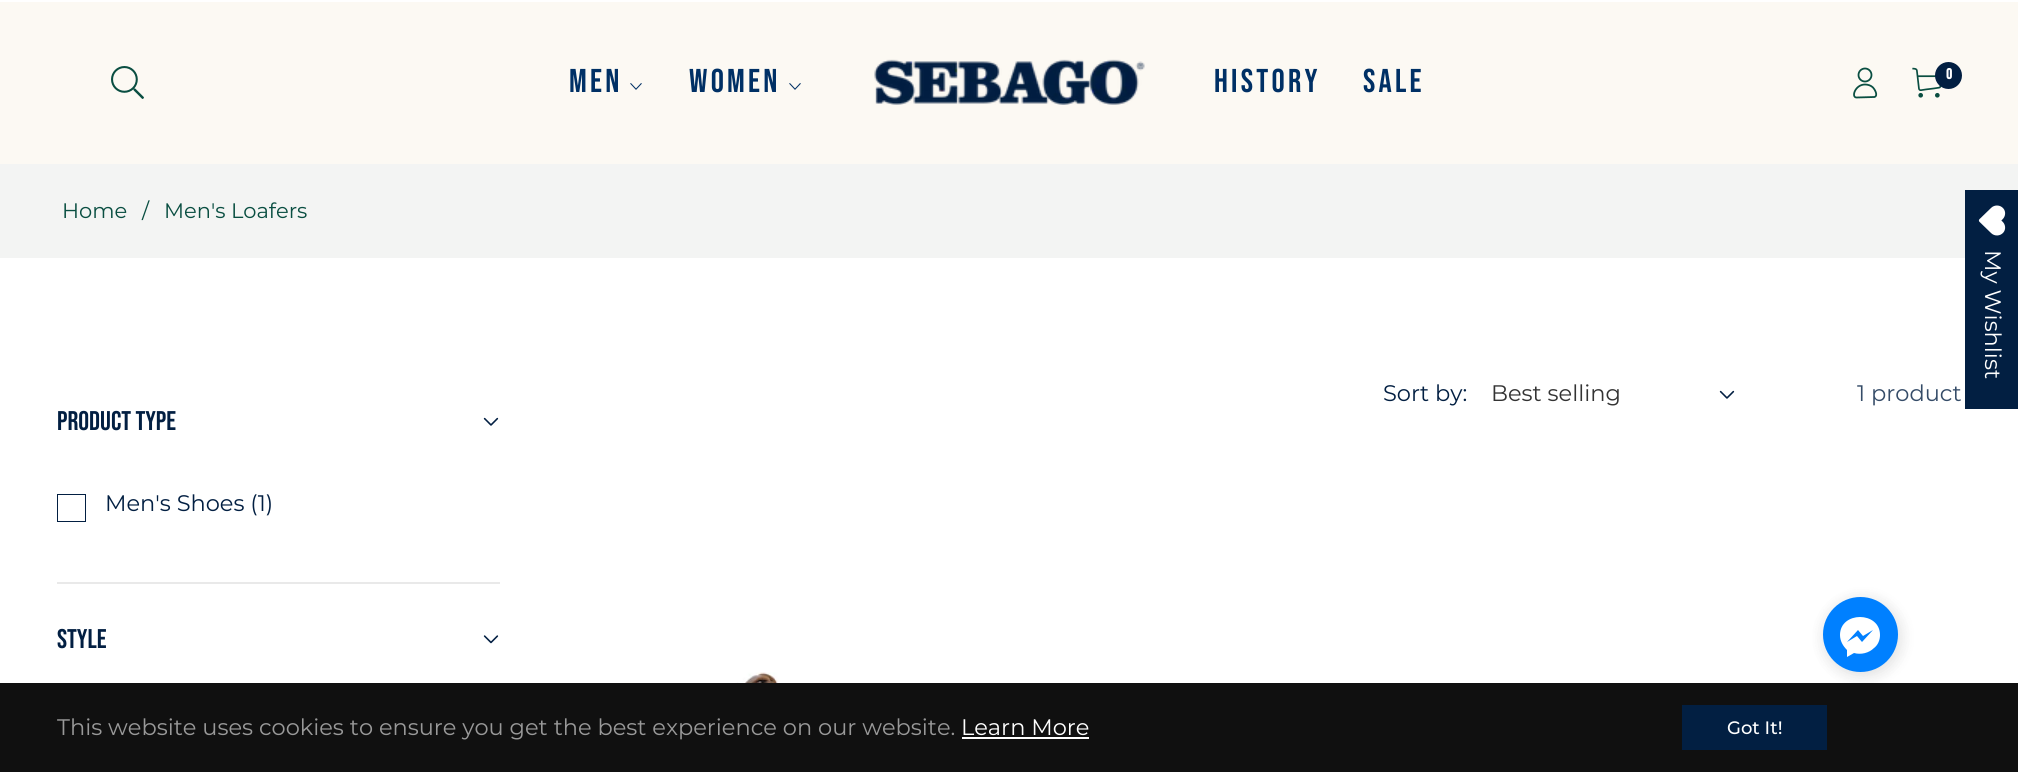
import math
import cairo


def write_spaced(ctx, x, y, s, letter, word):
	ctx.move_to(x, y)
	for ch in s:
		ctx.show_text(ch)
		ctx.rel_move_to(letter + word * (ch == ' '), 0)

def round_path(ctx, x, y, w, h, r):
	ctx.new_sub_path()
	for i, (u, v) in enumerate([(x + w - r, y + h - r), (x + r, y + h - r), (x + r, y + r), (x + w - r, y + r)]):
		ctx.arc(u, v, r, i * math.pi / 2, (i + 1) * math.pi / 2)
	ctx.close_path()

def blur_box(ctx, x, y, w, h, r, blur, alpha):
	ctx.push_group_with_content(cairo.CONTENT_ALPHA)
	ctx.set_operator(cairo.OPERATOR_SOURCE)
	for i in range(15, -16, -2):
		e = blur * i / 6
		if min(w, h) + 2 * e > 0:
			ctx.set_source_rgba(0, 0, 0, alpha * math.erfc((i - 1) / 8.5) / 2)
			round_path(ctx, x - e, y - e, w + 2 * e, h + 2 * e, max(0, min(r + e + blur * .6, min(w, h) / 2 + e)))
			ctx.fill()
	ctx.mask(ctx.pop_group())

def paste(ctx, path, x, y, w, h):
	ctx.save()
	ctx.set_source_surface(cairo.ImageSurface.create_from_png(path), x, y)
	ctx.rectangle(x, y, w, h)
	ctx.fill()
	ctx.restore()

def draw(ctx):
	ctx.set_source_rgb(1, 1, 1)
	ctx.paint()
	ctx.set_source_rgb(0.988, 0.976, 0.953)
	ctx.rectangle(0, 2, 2018, 162)
	ctx.fill()
	paste(ctx, 'media/1.png', 111, 66, 33, 33)
	ctx.select_font_face('Bebas Neue')
	ctx.set_font_size(33)
	ctx.set_source_rgb(0, 0.188, 0.396)
	write_spaced(ctx, 569, 92, 'MEN', 3.25, 0)
	paste(ctx, 'media/2.png', 630, 83, 12, 7)
	write_spaced(ctx, 689, 92, 'WOMEN', 3.25, 0)
	paste(ctx, 'media/2.png', 789, 83, 12, 7)
	paste(ctx, 'media/3.png', 874, 59, 271, 46)
	write_spaced(ctx, 1214, 92, 'HISTORY', 3.25, 0)
	write_spaced(ctx, 1363, 92, 'SALE', 3.25, 0)
	ctx.new_path()
	ctx.move_to(1865, 84.5)
	ctx.curve_to(1855, 84.5, 1851, 97.5, 1856.5, 97.5)
	ctx.line_to(1874.5, 97)
	ctx.curve_to(1878.5, 95.5, 1874.5, 89, 1873, 87.5)
	ctx.curve_to(1871, 85.5, 1868, 84.5, 1865, 84.5)
	ctx.close_path()
	ctx.set_source_rgb(0.039, 0.306, 0.255)
	ctx.set_line_width(1.8)
	ctx.stroke()
	ctx.arc(1865, 75, 6.5, 0, 2 * math.pi)
	ctx.stroke()
	paste(ctx, 'media/4.png', 1912, 67, 30, 31)
	ctx.set_source_rgb(0.008, 0.122, 0.259)
	ctx.arc(1948.5, 75.5, 13.5, 0, 2 * math.pi)
	ctx.fill()
	ctx.select_font_face('Bebas Neue', cairo.FONT_SLANT_NORMAL, cairo.FONT_WEIGHT_BOLD)
	ctx.set_font_size(15)
	ctx.set_source_rgb(1, 1, 1)
	ctx.move_to(1946, 79)
	ctx.show_text('0')
	ctx.set_source_rgb(0.953, 0.957, 0.953)
	ctx.rectangle(0, 164, 2018, 94)
	ctx.fill()
	ctx.select_font_face('Montserrat')
	ctx.set_font_size(21)
	ctx.set_source_rgb(0.039, 0.306, 0.255)
	for x, y, s in [
		(62, 218, 'Home'),
		(142, 218, '/'),
		(164, 218, 'Men\'s Loafers'),
	]:
		ctx.move_to(x, y)
		ctx.show_text(s)
	ctx.set_font_size(22.5)
	ctx.set_source_rgb(0.008, 0.122, 0.259)
	ctx.move_to(1383, 401)
	ctx.show_text('Sort by:')
	ctx.set_source_rgb(0.2, 0.2, 0.2)
	ctx.move_to(1491, 401)
	ctx.show_text('Best selling')
	paste(ctx, 'media/5.png', 1719, 390, 16, 9)
	ctx.set_source_rgb(0.208, 0.298, 0.408)
	ctx.move_to(1857, 401)
	ctx.show_text('1 product')
	ctx.set_source_rgb(0.914, 0.914, 0.914)
	ctx.rectangle(57, 582, 443, 2)
	ctx.fill()
	ctx.select_font_face('Bebas Neue')
	ctx.set_font_size(27)
	ctx.set_source_rgb(0.008, 0.122, 0.259)
	ctx.move_to(57, 430)
	ctx.show_text('PRODUCT TYPE')
	paste(ctx, 'media/5.png', 483, 417, 16, 9)
	ctx.save()
	ctx.rectangle(57, 494, 29, 28)
	ctx.clip()
	ctx.rectangle(57, 494, 29, 28)
	ctx.set_line_width(2)
	ctx.stroke()
	ctx.restore()
	ctx.select_font_face('Montserrat')
	ctx.set_font_size(22.5)
	ctx.move_to(105, 511)
	ctx.show_text('Men\'s Shoes (1)')
	ctx.select_font_face('Bebas Neue')
	ctx.set_font_size(27)
	ctx.move_to(57, 648)
	ctx.show_text('STYLE')
	paste(ctx, 'media/6.png', 483, 635, 16, 9)
	paste(ctx, 'media/7.png', 596, 672, 361, 11)
	ctx.rectangle(1965, 190, 53, 219)
	ctx.fill()
	paste(ctx, 'media/8.png', 1978, 205, 28, 31)
	ctx.select_font_face('Montserrat')
	ctx.set_font_size(22.5)
	ctx.set_source_rgb(1, 1, 1)
	ctx.save()
	ctx.translate(1985, 250)
	ctx.rotate(90 * math.pi / 180)
	ctx.move_to(0, 0)
	ctx.show_text('My Wishlist')
	ctx.restore()
	ctx.set_source_rgb(0.063, 0.063, 0.063)
	ctx.rectangle(0, 683, 2018, 89)
	ctx.fill()
	ctx.set_source_rgb(0, 0, 0)
	blur_box(ctx, 1823, 600, 75, 75, 37.5, 7.5, 0.05)
	blur_box(ctx, 1823, 597, 81, 81, 40.5, 7, 0.07)
	ctx.set_source_rgb(0, 0.502, 1)
	ctx.arc(1860.5, 634.5, 37.5, 0, 2 * math.pi)
	ctx.fill()
	ctx.set_source_rgb(1, 1, 1)
	ctx.set_fill_rule(cairo.FILL_RULE_EVEN_ODD)
	ctx.new_path()
	ctx.move_to(1840, 635)
	ctx.curve_to(1840, 611, 1880, 611, 1880, 635)
	ctx.curve_to(1880, 640, 1878, 645, 1874, 648)
	ctx.curve_to(1869, 653, 1861, 655, 1854, 653)
	ctx.line_to(1847, 657)
	ctx.line_to(1847, 650)
	ctx.curve_to(1843, 646, 1840, 641, 1840, 635)
	ctx.close_path()
	ctx.move_to(1857, 636)
	ctx.line_to(1862, 642)
	ctx.line_to(1873, 630)
	ctx.line_to(1863, 636)
	ctx.line_to(1858, 630)
	ctx.line_to(1847, 642)
	ctx.close_path()
	ctx.fill()
	ctx.set_source_rgb(0.6, 0.6, 0.6)
	ctx.move_to(57, 735)
	ctx.show_text('This website uses cookies to ensure you get the best experience on our website.')
	ctx.set_source_rgb(1, 1, 1)
	ctx.move_to(961, 735)
	ctx.show_text('Learn More')
	ctx.rectangle(962, 737, 127, 2)
	ctx.fill()
	ctx.set_source_rgb(0.008, 0.122, 0.259)
	ctx.rectangle(1682, 705, 145, 45)
	ctx.fill()
	ctx.select_font_face('Montserrat Medium')
	ctx.set_font_size(18)
	ctx.set_source_rgb(1, 1, 1)
	ctx.move_to(1727, 734)
	ctx.show_text('Got It!')


surface = cairo.ImageSurface(cairo.FORMAT_RGB24, 2018, 772)
ctx = cairo.Context(surface)
options = cairo.FontOptions()
options.set_hint_metrics(cairo.HINT_METRICS_OFF)
options.set_hint_style(cairo.HINT_STYLE_NONE)
ctx.set_font_options(options)
ctx.set_miter_limit(4)
draw(ctx)
surface.write_to_png('image.png')
